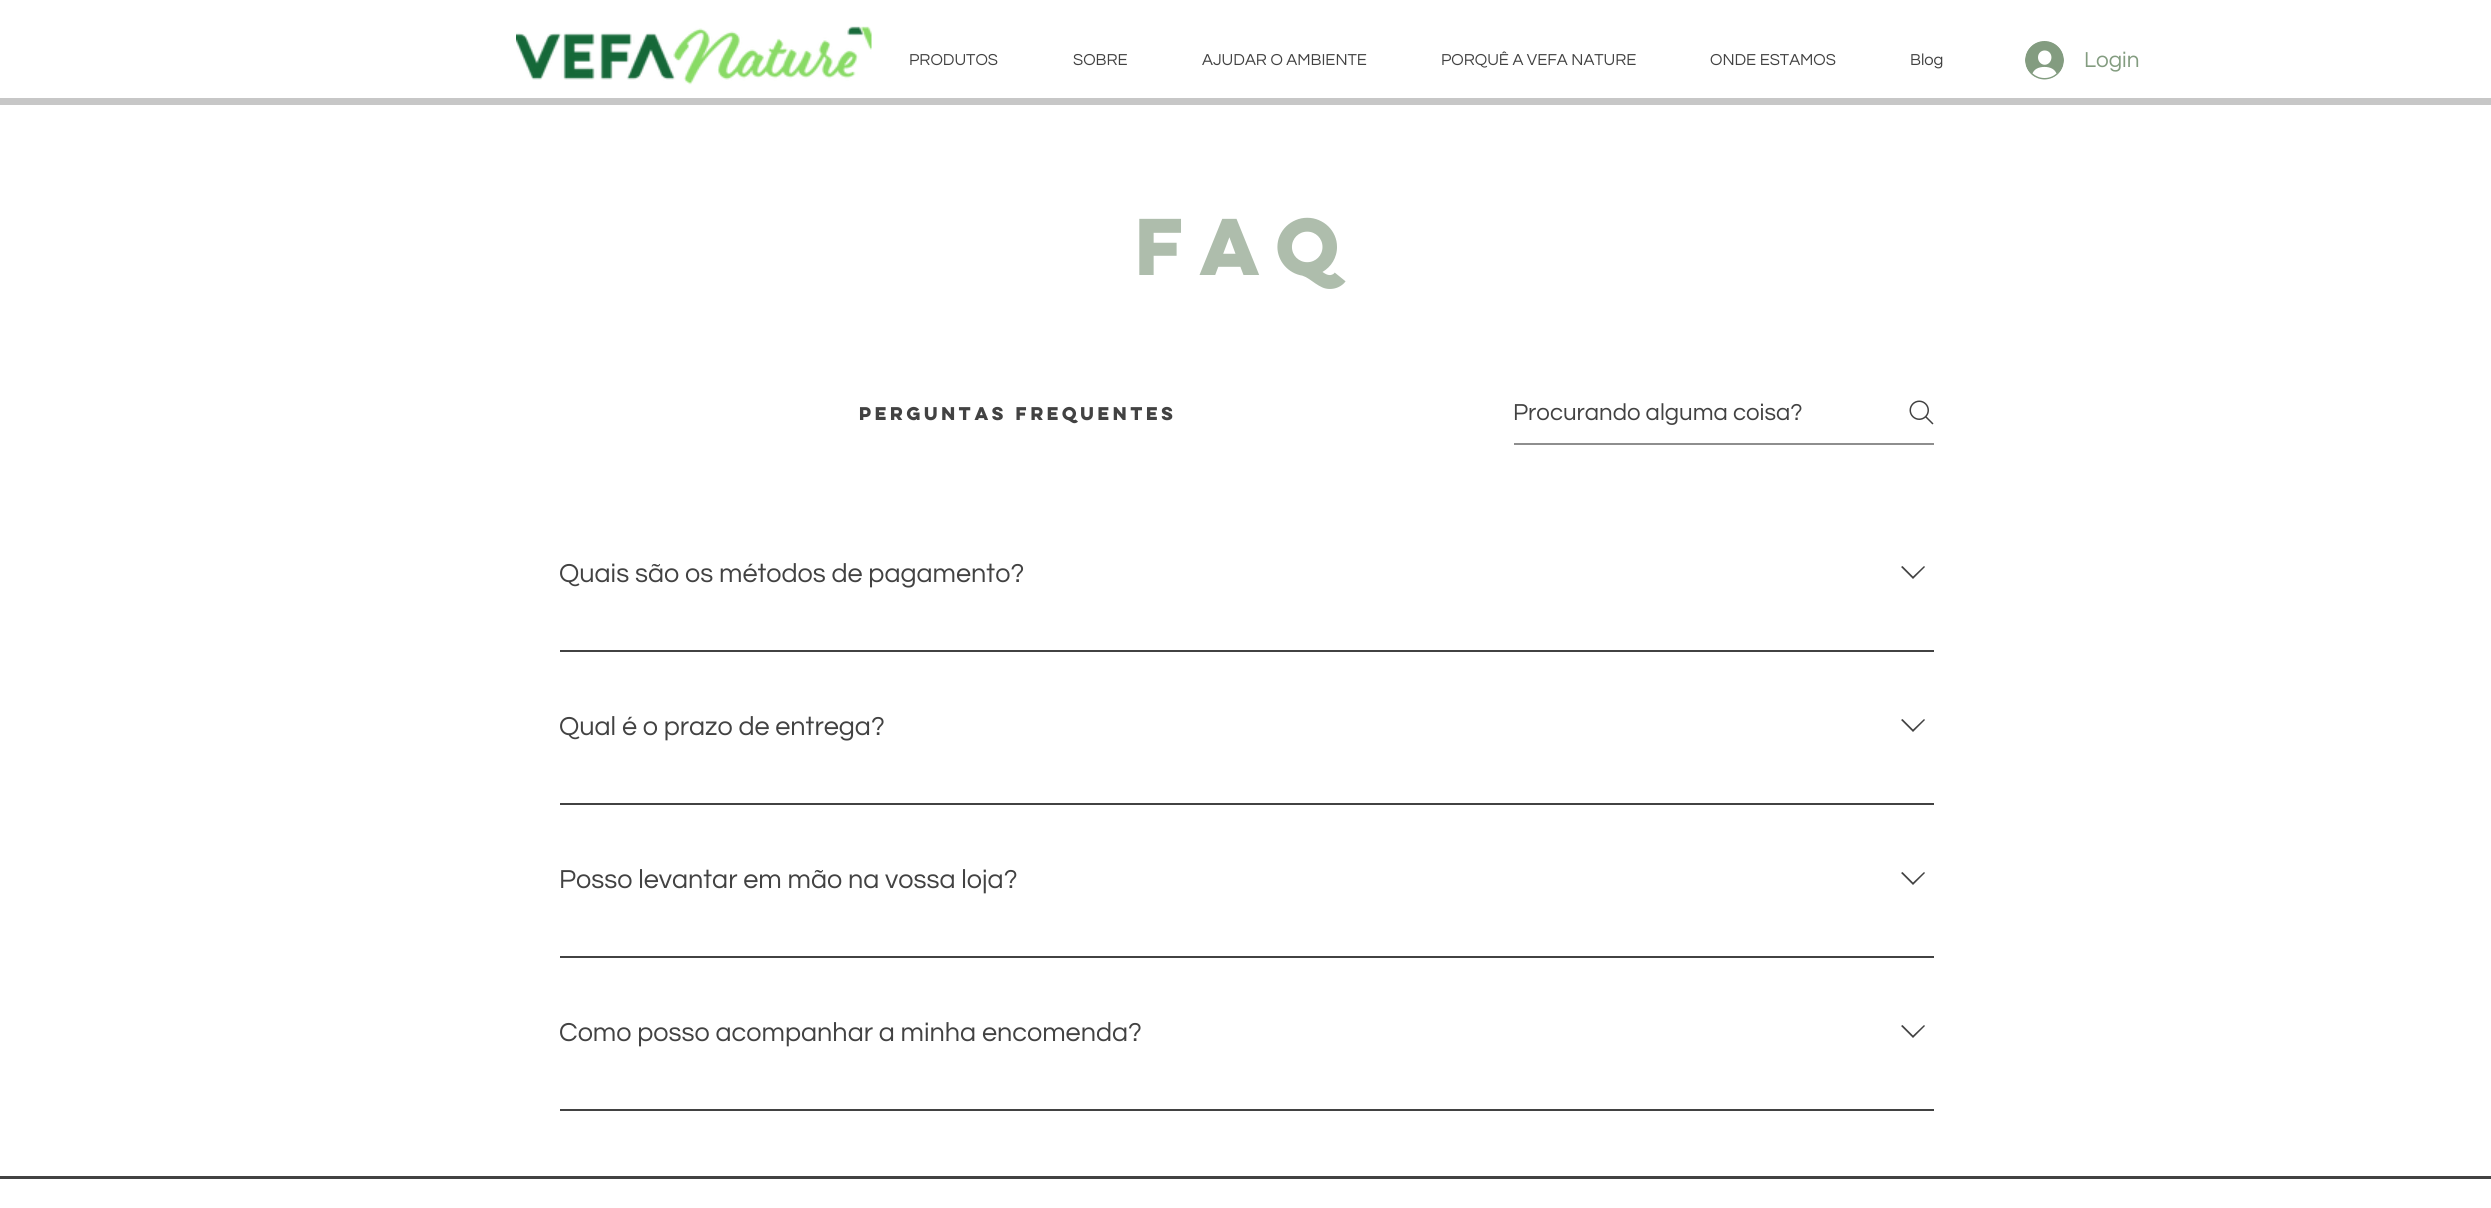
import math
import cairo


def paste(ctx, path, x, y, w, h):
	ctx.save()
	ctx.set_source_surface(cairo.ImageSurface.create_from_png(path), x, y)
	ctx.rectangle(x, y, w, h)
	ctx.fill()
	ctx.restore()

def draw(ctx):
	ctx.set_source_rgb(1, 1, 1)
	ctx.paint()
	paste(ctx, 'media/1.png', 516, 26, 356, 59)
	ctx.select_font_face('Questrial')
	ctx.set_font_size(16.5)
	ctx.set_source_rgb(0.259, 0.259, 0.259)
	for x, y, s in [
		(909, 65, 'PRODUTOS'),
		(1073, 65, 'SOBRE'),
		(1202, 65, 'AJUDAR O AMBIENTE'),
		(1441, 65, 'PORQUÊ A VEFA NATURE'),
		(1710, 65, 'ONDE ESTAMOS'),
		(1910, 65, 'Blog'),
	]:
		ctx.move_to(x, y)
		ctx.show_text(s)
	paste(ctx, 'media/2.png', 2025, 41, 39, 39)
	ctx.set_font_size(22.5)
	ctx.set_source_rgb(0.514, 0.612, 0.502)
	ctx.move_to(2084, 67)
	ctx.show_text('Login')
	ctx.set_source_rgb(0.78, 0.78, 0.78)
	ctx.rectangle(0, 98, 2491, 7)
	ctx.fill()
	ctx.select_font_face('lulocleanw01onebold', cairo.FONT_SLANT_NORMAL, cairo.FONT_WEIGHT_BOLD)
	ctx.set_font_size(72)
	ctx.set_source_rgb(0.682, 0.741, 0.675)
	ctx.move_to(1135, 275)
	ctx.show_text('faq')
	ctx.set_font_size(16.5)
	ctx.set_source_rgb(0.259, 0.259, 0.259)
	ctx.move_to(859, 420)
	ctx.show_text('Perguntas frequentes')
	ctx.set_source_rgb(0.557, 0.557, 0.557)
	ctx.rectangle(1514, 443, 420, 2)
	ctx.fill()
	ctx.select_font_face('Questrial')
	ctx.set_font_size(24)
	ctx.set_source_rgb(0.259, 0.259, 0.259)
	ctx.move_to(1513, 420)
	ctx.show_text('Procurando alguma coisa?')
	paste(ctx, 'media/3.png', 1909, 400, 25, 25)
	ctx.set_font_size(27)
	ctx.move_to(559, 582)
	ctx.show_text('Quais são os métodos de pagamento?')
	ctx.set_fill_rule(cairo.FILL_RULE_EVEN_ODD)
	ctx.new_path()
	ctx.move_to(1924, 566)
	ctx.line_to(1925, 567)
	ctx.line_to(1913, 579)
	ctx.line_to(1901, 567)
	ctx.line_to(1902.5, 566)
	ctx.line_to(1913, 576.5)
	ctx.close_path()
	ctx.fill()
	ctx.rectangle(560, 650, 1374, 2)
	ctx.fill()
	ctx.move_to(559, 735)
	ctx.show_text('Qual é o prazo de entrega?')
	ctx.new_path()
	ctx.move_to(1924, 719)
	ctx.line_to(1925, 720)
	ctx.line_to(1913, 732)
	ctx.line_to(1901, 720)
	ctx.line_to(1902.5, 719)
	ctx.line_to(1913, 729.5)
	ctx.close_path()
	ctx.fill()
	ctx.rectangle(560, 803, 1374, 2)
	ctx.fill()
	ctx.move_to(559, 888)
	ctx.show_text('Posso levantar em mão na vossa loja?')
	ctx.new_path()
	ctx.move_to(1924, 872)
	ctx.line_to(1925, 873)
	ctx.line_to(1913, 885)
	ctx.line_to(1901, 873)
	ctx.line_to(1902.5, 872)
	ctx.line_to(1913, 882.5)
	ctx.close_path()
	ctx.fill()
	ctx.rectangle(560, 956, 1374, 2)
	ctx.fill()
	ctx.move_to(559, 1041)
	ctx.show_text('Como posso acompanhar a minha encomenda?')
	ctx.new_path()
	ctx.move_to(1924, 1025)
	ctx.line_to(1925, 1026)
	ctx.line_to(1913, 1038)
	ctx.line_to(1901, 1026)
	ctx.line_to(1902.5, 1025)
	ctx.line_to(1913, 1035.5)
	ctx.close_path()
	ctx.fill()
	ctx.rectangle(560, 1109, 1374, 2)
	ctx.fill()
	ctx.rectangle(0, 1176, 2491, 3)
	ctx.fill()


surface = cairo.ImageSurface(cairo.FORMAT_RGB24, 2491, 1208)
ctx = cairo.Context(surface)
options = cairo.FontOptions()
options.set_hint_metrics(cairo.HINT_METRICS_OFF)
options.set_hint_style(cairo.HINT_STYLE_NONE)
ctx.set_font_options(options)
ctx.set_miter_limit(4)
draw(ctx)
surface.write_to_png('image.png')
